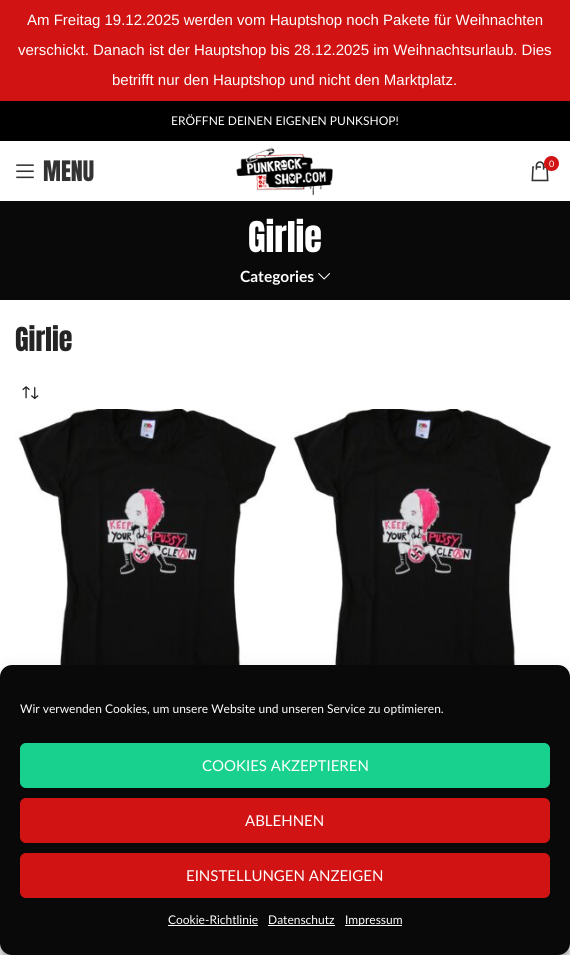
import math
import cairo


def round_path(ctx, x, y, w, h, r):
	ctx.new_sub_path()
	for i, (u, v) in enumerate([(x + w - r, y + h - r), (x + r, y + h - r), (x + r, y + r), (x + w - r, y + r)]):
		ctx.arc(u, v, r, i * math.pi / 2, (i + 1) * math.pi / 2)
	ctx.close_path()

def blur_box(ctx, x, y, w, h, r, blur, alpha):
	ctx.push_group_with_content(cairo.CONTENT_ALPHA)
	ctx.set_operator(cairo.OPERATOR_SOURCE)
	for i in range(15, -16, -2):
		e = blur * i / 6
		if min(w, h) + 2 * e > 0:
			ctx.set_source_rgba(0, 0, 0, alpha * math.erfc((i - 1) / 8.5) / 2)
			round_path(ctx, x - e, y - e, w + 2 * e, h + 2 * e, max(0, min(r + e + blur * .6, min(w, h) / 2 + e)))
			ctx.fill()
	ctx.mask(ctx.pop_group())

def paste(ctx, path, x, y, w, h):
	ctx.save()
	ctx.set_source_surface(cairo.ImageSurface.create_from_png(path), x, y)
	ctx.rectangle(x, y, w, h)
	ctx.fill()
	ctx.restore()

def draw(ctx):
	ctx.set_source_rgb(1, 1, 1)
	ctx.paint()
	ctx.set_source_rgb(0.82, 0.078, 0.078)
	ctx.rectangle(0, 0, 570, 101)
	ctx.fill()
	ctx.select_font_face('Liberation Sans')
	ctx.set_font_size(15)
	ctx.set_source_rgb(1, 1, 1)
	for x, y, s in [
		(27, 25, 'Am Freitag 19.12.2025 werden vom Hauptshop noch Pakete für Weihnachten'),
		(18, 55, 'verschickt. Danach ist der Hauptshop bis 28.12.2025 im Weihnachtsurlaub. Dies'),
		(112, 85, 'betrifft nur den Hauptshop und nicht den Marktplatz.'),
	]:
		ctx.move_to(x, y)
		ctx.show_text(s)
	ctx.set_source_rgb(0, 0, 0)
	ctx.rectangle(0, 101, 570, 40)
	ctx.fill()
	ctx.select_font_face('Lato')
	ctx.set_font_size(12)
	ctx.set_source_rgb(1, 1, 1)
	ctx.move_to(171, 125)
	ctx.show_text('ERÖFFNE DEINEN EIGENEN PUNKSHOP!')
	paste(ctx, 'media/1.png', 16, 164, 18, 15)
	ctx.select_font_face('Anton')
	ctx.set_font_size(24)
	ctx.set_source_rgb(0.2, 0.2, 0.2)
	ctx.move_to(43, 181)
	ctx.show_text('MENU')
	paste(ctx, 'media/2.png', 236, 147, 97, 49)
	paste(ctx, 'media/3.png', 531, 161, 18, 21)
	ctx.set_source_rgb(0.82, 0.078, 0.078)
	ctx.arc(551.5, 163.5, 7.5, 0, 2 * math.pi)
	ctx.fill()
	ctx.select_font_face('Lato')
	ctx.set_font_size(9)
	ctx.set_source_rgb(1, 1, 1)
	ctx.move_to(549, 167)
	ctx.show_text('0')
	ctx.set_source_rgb(0.039, 0.039, 0.039)
	ctx.rectangle(0, 201, 570, 99)
	ctx.fill()
	ctx.select_font_face('Anton')
	ctx.set_font_size(36)
	ctx.set_source_rgb(1, 1, 1)
	ctx.move_to(248, 252)
	ctx.show_text('Girlie')
	ctx.select_font_face('Lato', cairo.FONT_SLANT_NORMAL, cairo.FONT_WEIGHT_BOLD)
	ctx.set_font_size(15.5)
	ctx.move_to(240, 282)
	ctx.show_text('Categories')
	paste(ctx, 'media/4.png', 318, 273, 13, 7)
	ctx.select_font_face('Anton')
	ctx.set_font_size(28)
	ctx.set_source_rgb(0.141, 0.141, 0.141)
	ctx.move_to(15, 351)
	ctx.show_text('Girlie')
	paste(ctx, 'media/5.png', 22, 386, 17, 14)
	paste(ctx, 'media/6.png', 15, 409, 262, 256)
	paste(ctx, 'media/7.png', 290, 409, 262, 256)
	ctx.set_source_rgb(0, 0, 0)
	blur_box(ctx, 0, 671, 570, 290, 12, 3, 0.23)
	blur_box(ctx, 0, 675, 570, 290, 12, 10, 0.19)
	ctx.set_source_rgb(0.039, 0.039, 0.039)
	round_path(ctx, 0, 665, 570, 290, 12)
	ctx.fill()
	ctx.select_font_face('Lato')
	ctx.set_font_size(12)
	ctx.set_source_rgb(1, 1, 1)
	ctx.move_to(20, 713)
	ctx.show_text('Wir verwenden Cookies, um unsere Website und unseren Service zu optimieren.')
	ctx.set_source_rgb(0.098, 0.82, 0.557)
	round_path(ctx, 20.5, 743.5, 529, 44, 5.5)
	ctx.fill_preserve()
	ctx.set_line_width(1)
	ctx.stroke()
	ctx.set_font_size(15)
	ctx.set_source_rgb(1, 1, 1)
	ctx.move_to(202, 771)
	ctx.show_text('COOKIES AKZEPTIEREN')
	ctx.set_source_rgb(0.82, 0.078, 0.078)
	round_path(ctx, 20.5, 798.5, 529, 44, 5.5)
	ctx.fill_preserve()
	ctx.stroke()
	ctx.set_source_rgb(1, 1, 1)
	ctx.move_to(245, 826)
	ctx.show_text('ABLEHNEN')
	ctx.set_source_rgb(0.82, 0.078, 0.078)
	round_path(ctx, 20.5, 853.5, 529, 44, 5.5)
	ctx.fill_preserve()
	ctx.stroke()
	ctx.set_source_rgb(1, 1, 1)
	ctx.move_to(186, 881)
	ctx.show_text('EINSTELLUNGEN ANZEIGEN')
	ctx.set_font_size(12)
	ctx.move_to(168, 924)
	ctx.show_text('Cookie-Richtlinie')
	ctx.rectangle(168, 925, 90, 1)
	ctx.fill()
	ctx.move_to(268, 924)
	ctx.show_text('Datenschutz')
	ctx.rectangle(268, 925, 67, 1)
	ctx.fill()
	ctx.rectangle(345, 925, 57, 1)
	ctx.fill()
	ctx.move_to(345, 924)
	ctx.show_text('Impressum')


surface = cairo.ImageSurface(cairo.FORMAT_RGB24, 570, 955)
ctx = cairo.Context(surface)
options = cairo.FontOptions()
options.set_hint_metrics(cairo.HINT_METRICS_OFF)
options.set_hint_style(cairo.HINT_STYLE_NONE)
ctx.set_font_options(options)
ctx.set_miter_limit(4)
draw(ctx)
surface.write_to_png('image.png')
